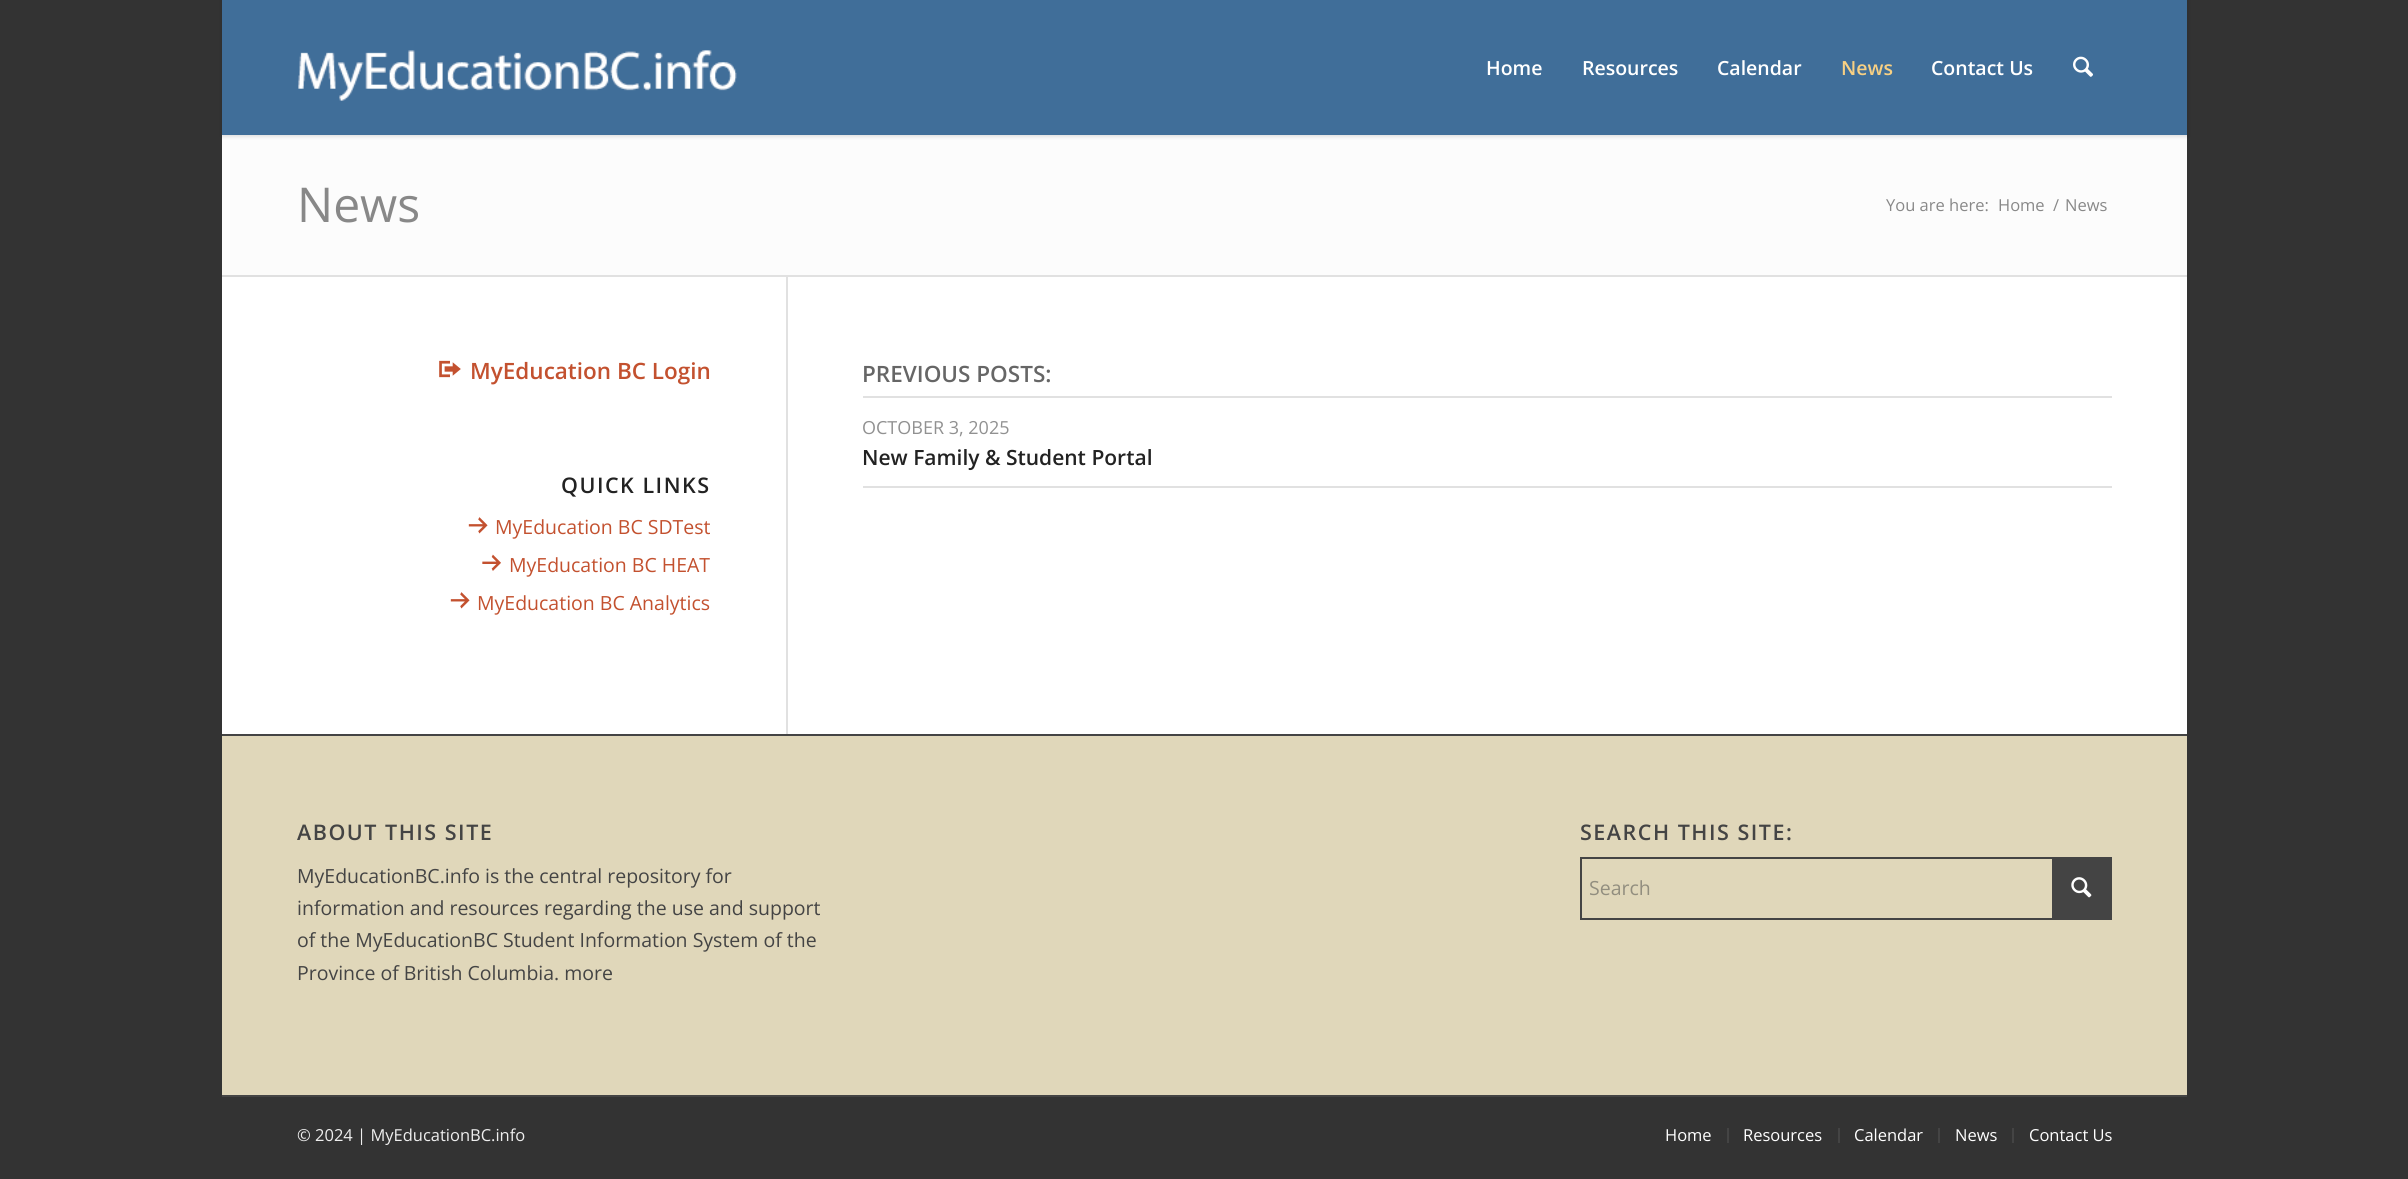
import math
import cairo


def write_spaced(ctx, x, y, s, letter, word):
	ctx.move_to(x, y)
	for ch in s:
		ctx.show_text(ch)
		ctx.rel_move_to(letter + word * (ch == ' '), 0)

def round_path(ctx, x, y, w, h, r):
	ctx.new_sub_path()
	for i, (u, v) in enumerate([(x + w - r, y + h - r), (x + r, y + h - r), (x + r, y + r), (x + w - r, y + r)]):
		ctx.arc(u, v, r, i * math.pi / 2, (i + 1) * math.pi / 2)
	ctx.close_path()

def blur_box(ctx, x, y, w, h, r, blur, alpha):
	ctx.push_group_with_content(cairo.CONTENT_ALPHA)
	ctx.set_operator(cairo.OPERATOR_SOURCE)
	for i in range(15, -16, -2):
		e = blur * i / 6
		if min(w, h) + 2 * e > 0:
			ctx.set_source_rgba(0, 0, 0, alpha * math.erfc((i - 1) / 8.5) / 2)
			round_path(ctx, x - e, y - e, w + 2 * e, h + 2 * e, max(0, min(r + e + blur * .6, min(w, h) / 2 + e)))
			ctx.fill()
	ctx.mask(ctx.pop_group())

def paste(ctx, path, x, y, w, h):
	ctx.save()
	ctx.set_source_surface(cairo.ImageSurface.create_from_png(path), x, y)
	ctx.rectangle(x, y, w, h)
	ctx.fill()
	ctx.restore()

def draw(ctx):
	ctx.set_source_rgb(0.2, 0.2, 0.2)
	ctx.paint()
	ctx.set_source_rgb(0.988, 0.988, 0.988)
	ctx.rectangle(222, 135, 1965, 140)
	ctx.fill()
	ctx.set_source_rgb(0, 0, 0)
	blur_box(ctx, 221, -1, 1968, 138, 0, 1.5, 0.1)
	ctx.set_source_rgb(0.251, 0.431, 0.6)
	ctx.rectangle(222, 0, 1965, 135)
	ctx.fill()
	paste(ctx, 'media/1.png', 298, 50, 439, 51)
	ctx.select_font_face('Open Sans SemiBold')
	ctx.set_font_size(19.5)
	ctx.set_source_rgb(1, 1, 1)
	for x, y, s in [
		(1486, 75, 'Home'),
		(1582, 75, 'Resources'),
		(1717, 75, 'Calendar'),
	]:
		ctx.move_to(x, y)
		ctx.show_text(s)
	ctx.set_source_rgb(0.969, 0.816, 0.514)
	ctx.move_to(1841, 75)
	ctx.show_text('News')
	ctx.set_source_rgb(1, 1, 1)
	ctx.move_to(1931, 75)
	ctx.show_text('Contact Us')
	paste(ctx, 'media/2.png', 2073, 56, 20, 21)
	ctx.select_font_face('Open Sans')
	ctx.set_font_size(48)
	ctx.set_source_rgb(0.533, 0.533, 0.533)
	ctx.move_to(297, 222)
	ctx.show_text('News')
	ctx.set_font_size(16.5)
	for x, y, s in [
		(1886, 211, 'You are here:'),
		(1998, 211, 'Home'),
		(2053, 211, '/'),
		(2065, 211, 'News'),
	]:
		ctx.move_to(x, y)
		ctx.show_text(s)
	ctx.set_source_rgb(1, 1, 1)
	ctx.rectangle(222, 277, 1965, 457)
	ctx.fill()
	ctx.set_source_rgb(0.882, 0.882, 0.882)
	ctx.rectangle(222, 275, 1965, 2)
	ctx.rectangle(786, 276, 2, 458)
	ctx.fill()
	paste(ctx, 'media/3.png', 439, 360, 22, 18)
	ctx.select_font_face('Open Sans SemiBold')
	ctx.set_font_size(22.5)
	ctx.set_source_rgb(0.765, 0.318, 0.184)
	ctx.move_to(470, 379)
	ctx.show_text('MyEducation BC Login')
	ctx.set_font_size(21.5)
	ctx.set_source_rgb(0.133, 0.133, 0.133)
	write_spaced(ctx, 561, 493, 'QUICK LINKS', 1.5, 0)
	paste(ctx, 'media/4.png', 468, 517, 20, 17)
	ctx.select_font_face('Open Sans')
	ctx.set_font_size(19.5)
	ctx.set_source_rgb(0.765, 0.318, 0.184)
	ctx.move_to(495, 534)
	ctx.show_text('MyEducation BC SDTest')
	paste(ctx, 'media/5.png', 482, 554, 19, 17)
	ctx.move_to(509, 572)
	ctx.show_text('MyEducation BC HEAT')
	paste(ctx, 'media/4.png', 450, 592, 20, 17)
	ctx.move_to(477, 610)
	ctx.show_text('MyEducation BC Analytics')
	ctx.set_source_rgb(0.882, 0.882, 0.882)
	ctx.rectangle(863, 396, 1249, 2)
	ctx.fill()
	ctx.select_font_face('Open Sans SemiBold')
	ctx.set_font_size(22.5)
	ctx.set_source_rgb(0.4, 0.4, 0.4)
	ctx.move_to(862, 382)
	ctx.show_text('PREVIOUS POSTS:')
	ctx.set_source_rgb(0.882, 0.882, 0.882)
	ctx.rectangle(863, 486, 1249, 2)
	ctx.fill()
	ctx.select_font_face('Open Sans')
	ctx.set_font_size(18)
	ctx.set_source_rgb(0.569, 0.569, 0.569)
	ctx.move_to(862, 434)
	ctx.show_text('OCTOBER 3, 2025')
	ctx.select_font_face('Open Sans SemiBold')
	ctx.set_font_size(21)
	ctx.set_source_rgb(0.133, 0.133, 0.133)
	ctx.move_to(862, 465)
	ctx.show_text('New Family & Student Portal')
	ctx.set_source_rgb(0.878, 0.843, 0.729)
	ctx.rectangle(222, 736, 1965, 359)
	ctx.fill()
	ctx.set_source_rgb(0.267, 0.267, 0.267)
	ctx.rectangle(222, 734, 1965, 2)
	ctx.fill()
	ctx.set_font_size(21.5)
	write_spaced(ctx, 297, 840, 'ABOUT THIS SITE', 1.5, 0)
	ctx.select_font_face('Open Sans')
	ctx.set_font_size(19.5)
	for x, y, s in [
		(297, 883, 'MyEducationBC.info is the central repository for'),
		(297, 915, 'information and resources regarding the use and support'),
		(297, 947, 'of the MyEducationBC Student Information System of the'),
		(297, 980, 'Province of British Columbia. more'),
	]:
		ctx.move_to(x, y)
		ctx.show_text(s)
	ctx.select_font_face('Open Sans SemiBold')
	ctx.set_font_size(21.5)
	write_spaced(ctx, 1580, 840, 'SEARCH THIS SITE:', 1.5, 0)
	ctx.rectangle(1581, 858, 530, 61)
	ctx.stroke()
	ctx.rectangle(2052, 859, 58, 59)
	ctx.fill()
	ctx.select_font_face('Open Sans')
	ctx.set_font_size(19.5)
	ctx.set_source_rgb(0.573, 0.557, 0.498)
	ctx.move_to(1589, 895)
	ctx.show_text('Search')
	paste(ctx, 'media/6.png', 2071, 877, 21, 21)
	ctx.set_source_rgb(0.267, 0.267, 0.267)
	ctx.rectangle(222, 1095, 1965, 2)
	ctx.fill()
	ctx.set_font_size(16.5)
	ctx.set_source_rgb(0.933, 0.933, 0.933)
	ctx.move_to(297, 1141)
	ctx.show_text('© 2024 | MyEducationBC.info')
	ctx.set_source_rgb(1, 1, 1)
	ctx.move_to(1665, 1141)
	ctx.show_text('Home')
	ctx.set_source_rgb(0.267, 0.267, 0.267)
	ctx.rectangle(1727, 1128, 2, 15)
	ctx.fill()
	ctx.set_source_rgb(1, 1, 1)
	ctx.move_to(1743, 1141)
	ctx.show_text('Resources')
	ctx.set_source_rgb(0.267, 0.267, 0.267)
	ctx.rectangle(1838, 1128, 2, 15)
	ctx.fill()
	ctx.set_source_rgb(1, 1, 1)
	ctx.move_to(1854, 1141)
	ctx.show_text('Calendar')
	ctx.set_source_rgb(0.267, 0.267, 0.267)
	ctx.rectangle(1938, 1128, 2, 15)
	ctx.fill()
	ctx.set_source_rgb(1, 1, 1)
	ctx.move_to(1955, 1141)
	ctx.show_text('News')
	ctx.set_source_rgb(0.267, 0.267, 0.267)
	ctx.rectangle(2012, 1128, 2, 15)
	ctx.fill()
	ctx.set_source_rgb(1, 1, 1)
	ctx.move_to(2029, 1141)
	ctx.show_text('Contact Us')


surface = cairo.ImageSurface(cairo.FORMAT_RGB24, 2408, 1179)
ctx = cairo.Context(surface)
options = cairo.FontOptions()
options.set_hint_metrics(cairo.HINT_METRICS_OFF)
options.set_hint_style(cairo.HINT_STYLE_NONE)
ctx.set_font_options(options)
ctx.set_miter_limit(4)
draw(ctx)
surface.write_to_png('image.png')
